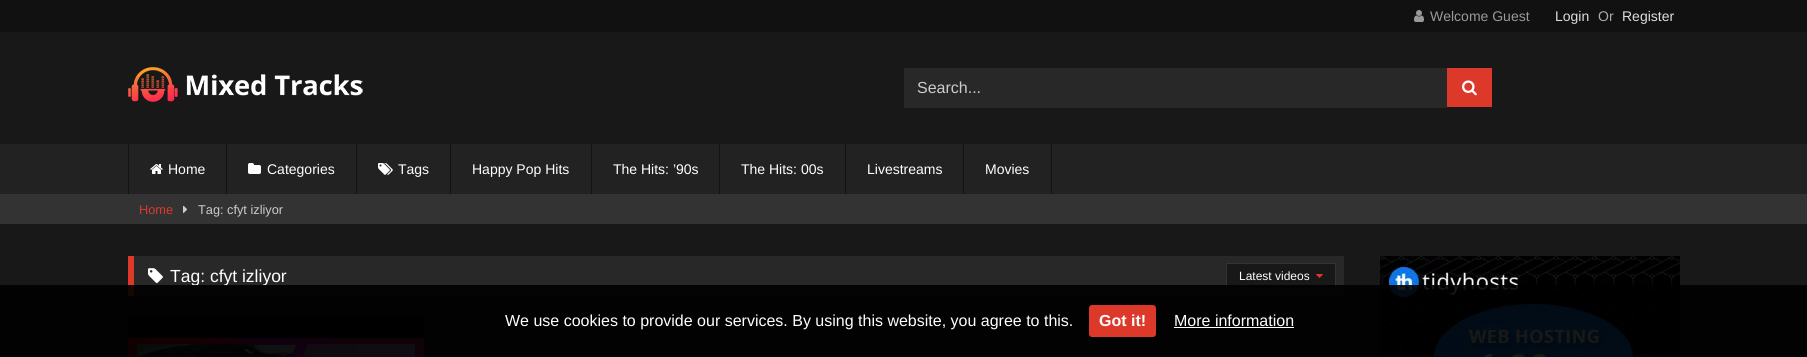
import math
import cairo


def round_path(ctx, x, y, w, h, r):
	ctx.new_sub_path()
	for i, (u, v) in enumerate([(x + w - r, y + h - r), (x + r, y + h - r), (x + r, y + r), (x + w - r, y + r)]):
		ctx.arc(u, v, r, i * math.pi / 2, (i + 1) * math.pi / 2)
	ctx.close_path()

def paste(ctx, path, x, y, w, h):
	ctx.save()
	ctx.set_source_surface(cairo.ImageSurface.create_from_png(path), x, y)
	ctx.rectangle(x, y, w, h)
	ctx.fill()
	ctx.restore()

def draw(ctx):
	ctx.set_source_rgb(0.094, 0.094, 0.094)
	ctx.paint()
	ctx.set_source_rgb(0.067, 0.067, 0.067)
	ctx.rectangle(0, 0, 1807, 32)
	ctx.fill()
	paste(ctx, 'media/1.png', 1414, 10, 10, 12)
	ctx.select_font_face('Liberation Sans')
	ctx.set_font_size(14)
	ctx.set_source_rgb(0.6, 0.6, 0.6)
	ctx.move_to(1430, 21)
	ctx.show_text('Welcome Guest')
	ctx.set_source_rgb(0.867, 0.867, 0.867)
	ctx.move_to(1555, 21)
	ctx.show_text('Login')
	ctx.set_source_rgb(0.667, 0.667, 0.667)
	ctx.move_to(1598, 21)
	ctx.show_text('Or')
	ctx.set_source_rgb(0.867, 0.867, 0.867)
	ctx.move_to(1622, 21)
	ctx.show_text('Register')
	paste(ctx, 'media/2.png', 128, 67, 235, 35)
	ctx.set_source_rgb(0.157, 0.157, 0.157)
	ctx.rectangle(904, 68, 543, 40)
	ctx.fill()
	ctx.set_font_size(16)
	ctx.set_source_rgb(0.8, 0.8, 0.8)
	ctx.move_to(917, 93)
	ctx.show_text('Search...')
	ctx.set_source_rgb(0.863, 0.224, 0.169)
	ctx.rectangle(1447, 68, 45, 39)
	ctx.fill()
	paste(ctx, 'media/3.png', 1462, 80, 15, 16)
	ctx.set_source_rgb(0.133, 0.133, 0.133)
	ctx.rectangle(0, 144, 1807, 50)
	ctx.fill()
	ctx.set_source_rgb(0.071, 0.071, 0.071)
	ctx.rectangle(226, 144, 1, 50)
	ctx.rectangle(128, 144, 1, 50)
	ctx.fill()
	paste(ctx, 'media/4.png', 150, 164, 13, 10)
	ctx.set_font_size(14)
	ctx.set_source_rgb(1, 1, 1)
	ctx.move_to(168, 174)
	ctx.show_text('Home')
	ctx.set_source_rgb(0.071, 0.071, 0.071)
	ctx.rectangle(356, 144, 1, 50)
	ctx.fill()
	paste(ctx, 'media/5.png', 248, 163, 13, 11)
	ctx.set_source_rgb(1, 1, 1)
	ctx.move_to(267, 174)
	ctx.show_text('Categories')
	ctx.set_source_rgb(0.071, 0.071, 0.071)
	ctx.rectangle(450, 144, 1, 50)
	ctx.fill()
	paste(ctx, 'media/6.png', 378, 163, 15, 12)
	ctx.set_source_rgb(1, 1, 1)
	ctx.move_to(398, 174)
	ctx.show_text('Tags')
	ctx.set_source_rgb(0.071, 0.071, 0.071)
	ctx.rectangle(591, 144, 1, 50)
	ctx.fill()
	ctx.set_source_rgb(1, 1, 1)
	ctx.move_to(472, 174)
	ctx.show_text('Happy Pop Hits')
	ctx.set_source_rgb(0.071, 0.071, 0.071)
	ctx.rectangle(719, 144, 1, 50)
	ctx.fill()
	ctx.set_source_rgb(1, 1, 1)
	ctx.move_to(613, 174)
	ctx.show_text('The Hits: ’90s')
	ctx.set_source_rgb(0.071, 0.071, 0.071)
	ctx.rectangle(845, 144, 1, 50)
	ctx.fill()
	ctx.set_source_rgb(1, 1, 1)
	ctx.move_to(741, 174)
	ctx.show_text('The Hits: 00s')
	ctx.set_source_rgb(0.071, 0.071, 0.071)
	ctx.rectangle(963, 144, 1, 50)
	ctx.fill()
	ctx.set_source_rgb(1, 1, 1)
	ctx.move_to(867, 174)
	ctx.show_text('Livestreams')
	ctx.set_source_rgb(0.071, 0.071, 0.071)
	ctx.rectangle(1051, 144, 1, 50)
	ctx.fill()
	ctx.set_source_rgb(1, 1, 1)
	ctx.move_to(985, 174)
	ctx.show_text('Movies')
	ctx.set_source_rgb(0.2, 0.2, 0.2)
	ctx.rectangle(0, 194, 1807, 30)
	ctx.fill()
	ctx.set_font_size(12.75)
	ctx.set_source_rgb(0.863, 0.224, 0.169)
	ctx.move_to(139, 214)
	ctx.show_text('Home')
	paste(ctx, 'media/7.png', 183, 205, 5, 8)
	ctx.set_source_rgb(0.8, 0.8, 0.8)
	ctx.move_to(198, 214)
	ctx.show_text('Tag: cfyt izliyor')
	ctx.set_source_rgb(0.157, 0.157, 0.157)
	ctx.rectangle(134, 256, 1210, 40)
	ctx.fill()
	ctx.set_source_rgb(0.863, 0.224, 0.169)
	ctx.rectangle(128, 256, 6, 40)
	ctx.fill()
	paste(ctx, 'media/8.png', 148, 268, 15, 15)
	ctx.set_font_size(17.5)
	ctx.set_source_rgb(1, 1, 1)
	ctx.move_to(170, 282)
	ctx.show_text('Tag: cfyt izliyor')
	ctx.set_source_rgb(0.094, 0.094, 0.094)
	ctx.rectangle(1226.5, 263.5, 109, 25)
	ctx.fill_preserve()
	ctx.set_source_rgb(0.2, 0.2, 0.2)
	ctx.set_line_width(1)
	ctx.stroke()
	ctx.set_font_size(12)
	ctx.set_source_rgb(1, 1, 1)
	ctx.move_to(1239, 280)
	ctx.show_text('Latest videos')
	paste(ctx, 'media/9.png', 1316, 274, 7, 4)
	ctx.set_source_rgb(0, 0, 0)
	ctx.rectangle(128, 317, 296, 17)
	ctx.fill()
	paste(ctx, 'media/10.png', 128, 334, 296, 23)
	paste(ctx, 'media/11.png', 1380, 256, 300, 101)
	ctx.set_source_rgba(0, 0, 0, 0.9)
	ctx.rectangle(0, 285, 1807, 72)
	ctx.fill()
	ctx.set_font_size(16)
	ctx.set_source_rgb(1, 1, 1)
	ctx.move_to(505, 326)
	ctx.show_text('We use cookies to provide our services. By using this website, you agree to this.')
	ctx.set_source_rgb(0.863, 0.224, 0.169)
	round_path(ctx, 1089, 305, 67, 32, 3)
	ctx.fill()
	ctx.select_font_face('Liberation Sans', cairo.FONT_SLANT_NORMAL, cairo.FONT_WEIGHT_BOLD)
	ctx.set_source_rgb(1, 1, 1)
	ctx.move_to(1099, 326)
	ctx.show_text('Got it!')
	ctx.select_font_face('Liberation Sans')
	ctx.move_to(1174, 326)
	ctx.show_text('More information')
	ctx.rectangle(1174, 327, 120, 1)
	ctx.fill()


surface = cairo.ImageSurface(cairo.FORMAT_RGB24, 1807, 357)
ctx = cairo.Context(surface)
options = cairo.FontOptions()
options.set_hint_metrics(cairo.HINT_METRICS_OFF)
options.set_hint_style(cairo.HINT_STYLE_NONE)
ctx.set_font_options(options)
ctx.set_miter_limit(4)
draw(ctx)
surface.write_to_png('image.png')
